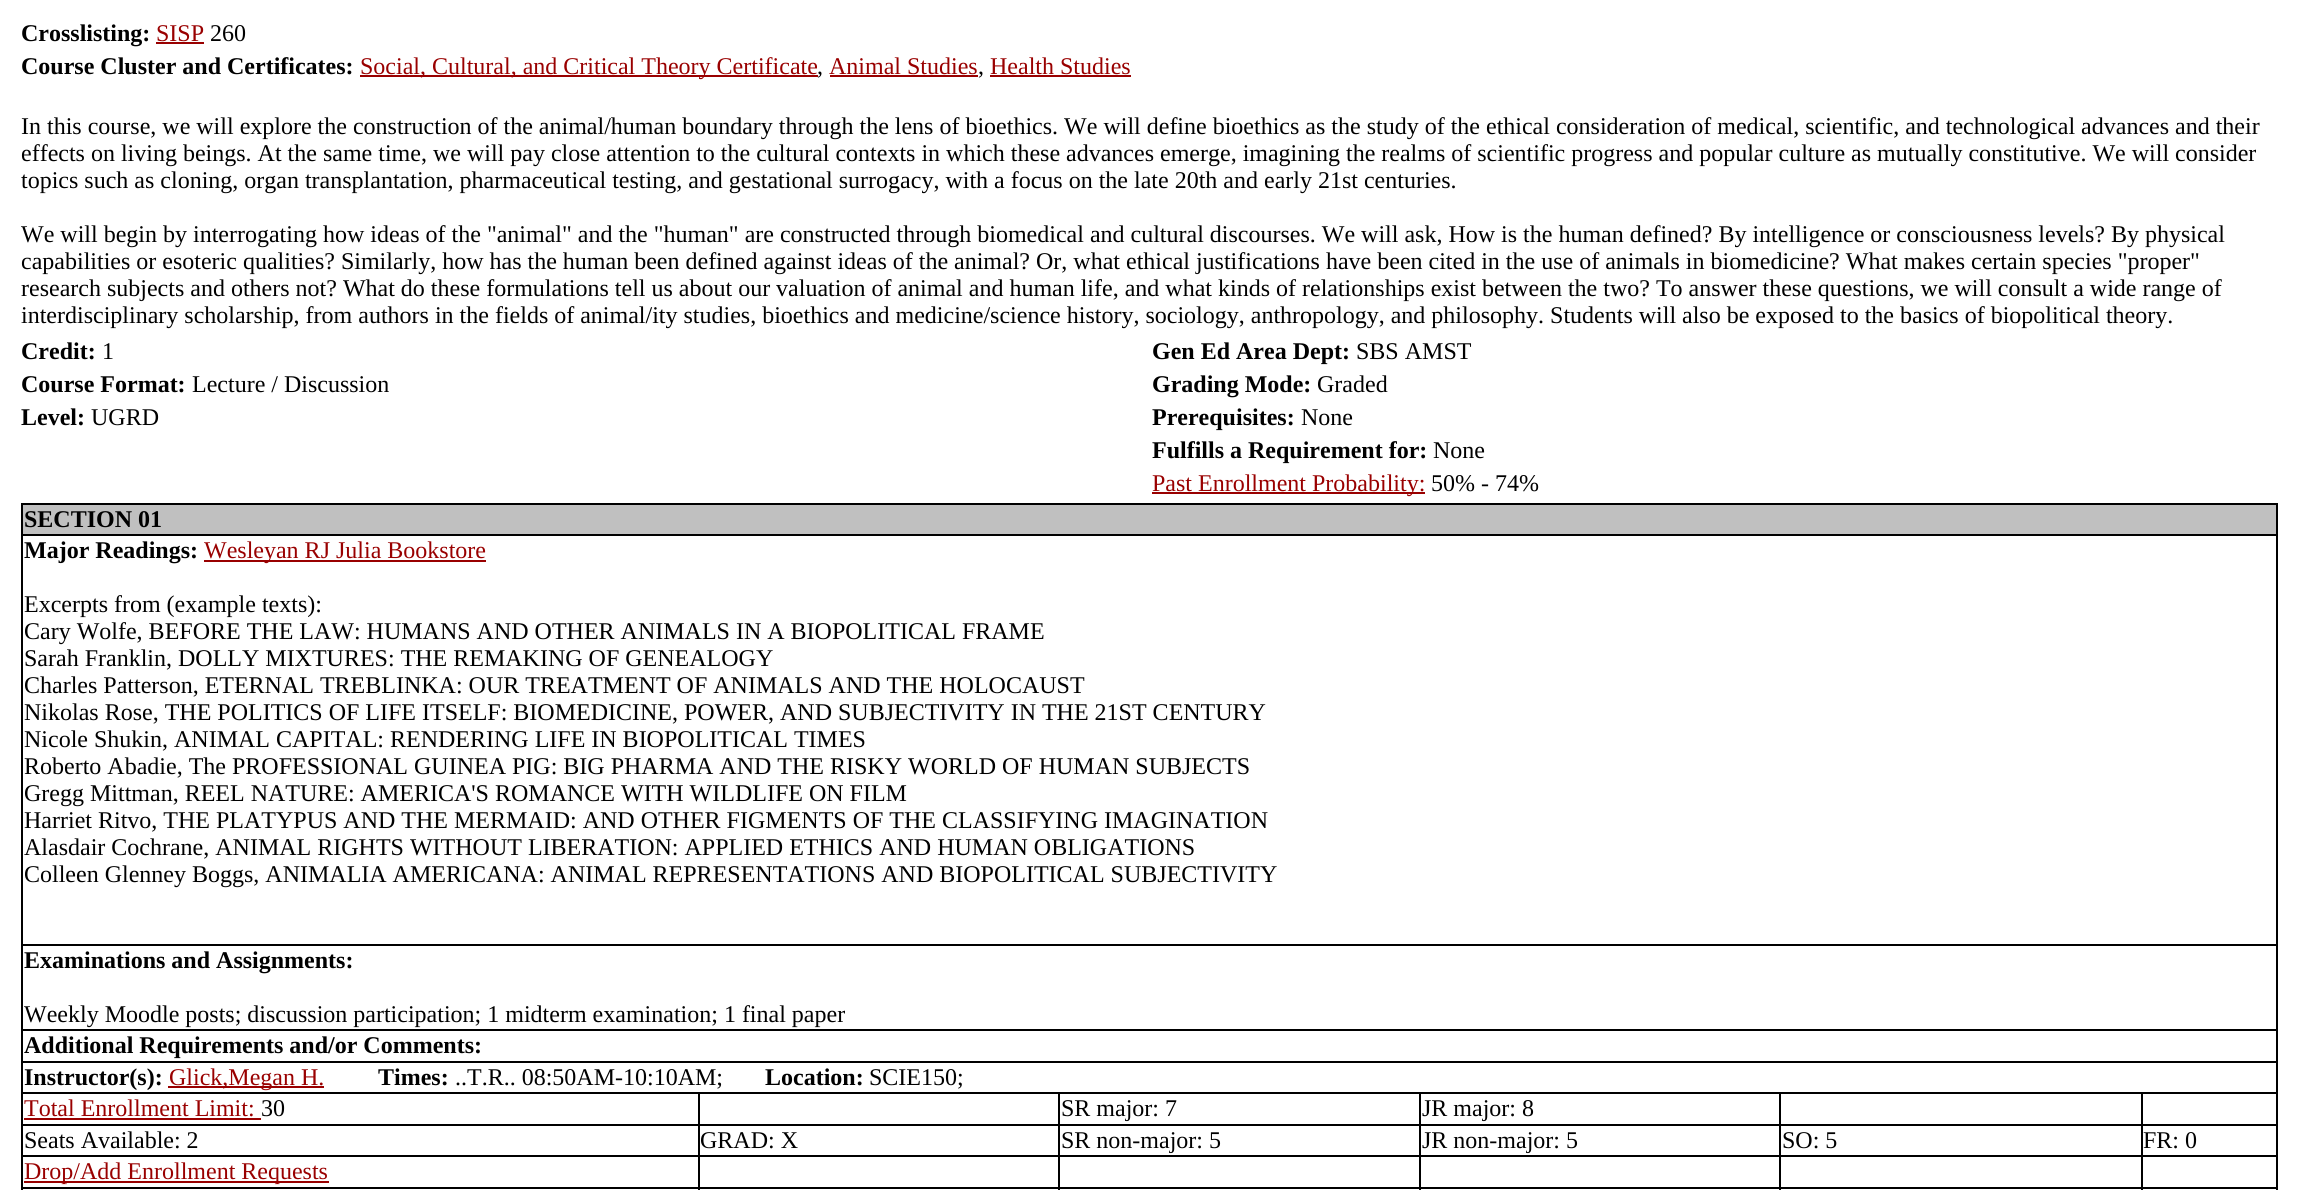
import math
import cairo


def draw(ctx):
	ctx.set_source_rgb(1, 1, 1)
	ctx.paint()
	ctx.select_font_face('Liberation Serif', cairo.FONT_SLANT_NORMAL, cairo.FONT_WEIGHT_BOLD)
	ctx.set_font_size(24)
	ctx.set_source_rgb(0, 0, 0)
	ctx.move_to(21, 41)
	ctx.show_text('Crosslisting:')
	ctx.select_font_face('Liberation Serif')
	ctx.set_source_rgb(0.6, 0, 0)
	ctx.move_to(156, 41)
	ctx.show_text('SISP')
	ctx.rectangle(156, 42, 48, 2)
	ctx.fill()
	ctx.set_source_rgb(0, 0, 0)
	ctx.move_to(210, 41)
	ctx.show_text('260')
	ctx.select_font_face('Liberation Serif', cairo.FONT_SLANT_NORMAL, cairo.FONT_WEIGHT_BOLD)
	ctx.move_to(21, 74)
	ctx.show_text('Course Cluster and Certificates:')
	ctx.set_source_rgb(0.6, 0, 0)
	ctx.rectangle(360, 75, 458, 2)
	ctx.fill()
	ctx.select_font_face('Liberation Serif')
	ctx.move_to(360, 74)
	ctx.show_text('Social, Cultural, and Critical Theory Certificate')
	ctx.set_source_rgb(0, 0, 0)
	ctx.move_to(817, 74)
	ctx.show_text(',')
	ctx.set_source_rgb(0.6, 0, 0)
	ctx.move_to(829, 74)
	ctx.show_text('Animal Studies')
	ctx.rectangle(830, 75, 148, 2)
	ctx.fill()
	ctx.set_source_rgb(0, 0, 0)
	ctx.move_to(978, 74)
	ctx.show_text(',')
	ctx.set_source_rgb(0.6, 0, 0)
	ctx.move_to(990, 74)
	ctx.show_text('Health Studies')
	ctx.rectangle(990, 75, 141, 2)
	ctx.fill()
	ctx.set_source_rgb(0, 0, 0)
	for x, y, s in [
		(21, 134, 'In this course, we will explore the construction of the animal/human boundary through the lens of bioethics. We will define bioethics as the study of the ethical consideration of medical, scientific, and technological advances and their'),
		(21, 161, 'effects on living beings. At the same time, we will pay close attention to the cultural contexts in which these advances emerge, imagining the realms of scientific progress and popular culture as mutually constitutive. We will consider'),
		(21, 188, 'topics such as cloning, organ transplantation, pharmaceutical testing, and gestational surrogacy, with a focus on the late 20th and early 21st centuries.'),
		(21, 242, 'We will begin by interrogating how ideas of the "animal" and the "human" are constructed through biomedical and cultural discourses. We will ask, How is the human defined? By intelligence or consciousness levels? By physical'),
		(21, 269, 'capabilities or esoteric qualities? Similarly, how has the human been defined against ideas of the animal? Or, what ethical justifications have been cited in the use of animals in biomedicine? What makes certain species "proper"'),
		(21, 296, 'research subjects and others not? What do these formulations tell us about our valuation of animal and human life, and what kinds of relationships exist between the two? To answer these questions, we will consult a wide range of'),
		(21, 323, 'interdisciplinary scholarship, from authors in the fields of animal/ity studies, bioethics and medicine/science history, sociology, anthropology, and philosophy. Students will also be exposed to the basics of biopolitical theory.'),
	]:
		ctx.move_to(x, y)
		ctx.show_text(s)
	ctx.select_font_face('Liberation Serif', cairo.FONT_SLANT_NORMAL, cairo.FONT_WEIGHT_BOLD)
	ctx.move_to(21, 359)
	ctx.show_text('Credit:')
	ctx.select_font_face('Liberation Serif')
	ctx.move_to(102, 359)
	ctx.show_text('1')
	ctx.select_font_face('Liberation Serif', cairo.FONT_SLANT_NORMAL, cairo.FONT_WEIGHT_BOLD)
	ctx.move_to(1152, 359)
	ctx.show_text('Gen Ed Area Dept:')
	ctx.select_font_face('Liberation Serif')
	ctx.move_to(1356, 359)
	ctx.show_text('SBS AMST')
	ctx.select_font_face('Liberation Serif', cairo.FONT_SLANT_NORMAL, cairo.FONT_WEIGHT_BOLD)
	ctx.move_to(21, 392)
	ctx.show_text('Course Format:')
	ctx.select_font_face('Liberation Serif')
	ctx.move_to(192, 392)
	ctx.show_text('Lecture / Discussion')
	ctx.select_font_face('Liberation Serif', cairo.FONT_SLANT_NORMAL, cairo.FONT_WEIGHT_BOLD)
	ctx.move_to(1152, 392)
	ctx.show_text('Grading Mode:')
	ctx.select_font_face('Liberation Serif')
	ctx.move_to(1317, 392)
	ctx.show_text('Graded')
	ctx.select_font_face('Liberation Serif', cairo.FONT_SLANT_NORMAL, cairo.FONT_WEIGHT_BOLD)
	ctx.move_to(21, 425)
	ctx.show_text('Level:')
	ctx.select_font_face('Liberation Serif')
	ctx.move_to(91, 425)
	ctx.show_text('UGRD')
	ctx.select_font_face('Liberation Serif', cairo.FONT_SLANT_NORMAL, cairo.FONT_WEIGHT_BOLD)
	ctx.move_to(1152, 425)
	ctx.show_text('Prerequisites:')
	ctx.select_font_face('Liberation Serif')
	ctx.move_to(1301, 425)
	ctx.show_text('None')
	ctx.select_font_face('Liberation Serif', cairo.FONT_SLANT_NORMAL, cairo.FONT_WEIGHT_BOLD)
	ctx.move_to(1152, 458)
	ctx.show_text('Fulfills a Requirement for:')
	ctx.select_font_face('Liberation Serif')
	ctx.move_to(1433, 458)
	ctx.show_text('None')
	ctx.set_source_rgb(0.6, 0, 0)
	ctx.rectangle(1152, 492, 273, 2)
	ctx.fill()
	ctx.move_to(1152, 491)
	ctx.show_text('Past Enrollment Probability:')
	ctx.set_source_rgb(0, 0, 0)
	ctx.move_to(1431, 491)
	ctx.show_text('50% - 74%')
	ctx.rectangle(21, 503, 2256, 2)
	ctx.rectangle(2276, 503, 2, 687)
	ctx.rectangle(21, 503, 2, 687)
	ctx.fill()
	ctx.set_source_rgb(0.753, 0.753, 0.753)
	ctx.rectangle(23, 505, 2253, 29)
	ctx.fill()
	ctx.select_font_face('Liberation Serif', cairo.FONT_SLANT_NORMAL, cairo.FONT_WEIGHT_BOLD)
	ctx.set_source_rgb(0, 0, 0)
	ctx.move_to(24, 527)
	ctx.show_text('SECTION 01')
	ctx.rectangle(21, 534, 2256, 2)
	ctx.fill()
	ctx.move_to(24, 558)
	ctx.show_text('Major Readings:')
	ctx.set_source_rgb(0.6, 0, 0)
	ctx.rectangle(204, 560, 282, 2)
	ctx.fill()
	ctx.select_font_face('Liberation Serif')
	ctx.move_to(204, 558)
	ctx.show_text('Wesleyan RJ Julia Bookstore')
	ctx.set_source_rgb(0, 0, 0)
	for x, y, s in [
		(24, 612, 'Excerpts from (example texts):'),
		(24, 639, 'Cary Wolfe, BEFORE THE LAW: HUMANS AND OTHER ANIMALS IN A BIOPOLITICAL FRAME'),
		(24, 666, 'Sarah Franklin, DOLLY MIXTURES: THE REMAKING OF GENEALOGY'),
		(24, 693, 'Charles Patterson, ETERNAL TREBLINKA: OUR TREATMENT OF ANIMALS AND THE HOLOCAUST'),
		(24, 720, 'Nikolas Rose, THE POLITICS OF LIFE ITSELF: BIOMEDICINE, POWER, AND SUBJECTIVITY IN THE 21ST CENTURY'),
		(24, 747, 'Nicole Shukin, ANIMAL CAPITAL: RENDERING LIFE IN BIOPOLITICAL TIMES'),
		(24, 774, 'Roberto Abadie, The PROFESSIONAL GUINEA PIG: BIG PHARMA AND THE RISKY WORLD OF HUMAN SUBJECTS'),
		(24, 801, 'Gregg Mittman, REEL NATURE: AMERICA\'S ROMANCE WITH WILDLIFE ON FILM'),
		(24, 828, 'Harriet Ritvo, THE PLATYPUS AND THE MERMAID: AND OTHER FIGMENTS OF THE CLASSIFYING IMAGINATION'),
		(24, 855, 'Alasdair Cochrane, ANIMAL RIGHTS WITHOUT LIBERATION: APPLIED ETHICS AND HUMAN OBLIGATIONS'),
		(24, 882, 'Colleen Glenney Boggs, ANIMALIA AMERICANA: ANIMAL REPRESENTATIONS AND BIOPOLITICAL SUBJECTIVITY'),
	]:
		ctx.move_to(x, y)
		ctx.show_text(s)
	ctx.rectangle(21, 944, 2256, 2)
	ctx.fill()
	ctx.select_font_face('Liberation Serif', cairo.FONT_SLANT_NORMAL, cairo.FONT_WEIGHT_BOLD)
	ctx.move_to(24, 968)
	ctx.show_text('Examinations and Assignments:')
	ctx.select_font_face('Liberation Serif')
	ctx.move_to(24, 1022)
	ctx.show_text('Weekly Moodle posts; discussion participation; 1 midterm examination; 1 final paper')
	ctx.rectangle(21, 1029, 2256, 2)
	ctx.fill()
	ctx.select_font_face('Liberation Serif', cairo.FONT_SLANT_NORMAL, cairo.FONT_WEIGHT_BOLD)
	ctx.move_to(24, 1053)
	ctx.show_text('Additional Requirements and/or Comments:')
	ctx.rectangle(21, 1061, 2256, 2)
	ctx.fill()
	ctx.move_to(24, 1085)
	ctx.show_text('Instructor(s):')
	ctx.set_source_rgb(0.6, 0, 0)
	ctx.rectangle(168, 1086, 156, 2)
	ctx.fill()
	ctx.select_font_face('Liberation Serif')
	ctx.move_to(169, 1085)
	ctx.show_text('Glick,Megan H.')
	ctx.select_font_face('Liberation Serif', cairo.FONT_SLANT_NORMAL, cairo.FONT_WEIGHT_BOLD)
	ctx.set_source_rgb(0, 0, 0)
	ctx.move_to(378, 1085)
	ctx.show_text('Times:')
	ctx.select_font_face('Liberation Serif')
	ctx.move_to(455, 1085)
	ctx.show_text('..T.R.. 08:50AM-10:10AM;')
	ctx.select_font_face('Liberation Serif', cairo.FONT_SLANT_NORMAL, cairo.FONT_WEIGHT_BOLD)
	ctx.move_to(765, 1085)
	ctx.show_text('Location:')
	ctx.select_font_face('Liberation Serif')
	ctx.move_to(869, 1085)
	ctx.show_text('SCIE150;')
	ctx.rectangle(2141, 1092, 136, 2)
	ctx.rectangle(2141, 1124, 136, 2)
	ctx.rectangle(2141, 1155, 136, 2)
	ctx.rectangle(2141, 1187, 136, 2)
	ctx.rectangle(2141, 1187, 2, 3)
	ctx.rectangle(1779, 1187, 363, 2)
	ctx.rectangle(2141, 1155, 2, 33)
	ctx.rectangle(1779, 1155, 363, 2)
	ctx.rectangle(2141, 1124, 2, 33)
	ctx.rectangle(1779, 1124, 363, 2)
	ctx.rectangle(2141, 1092, 2, 33)
	ctx.rectangle(1779, 1092, 363, 2)
	ctx.rectangle(1779, 1187, 2, 3)
	ctx.rectangle(1419, 1187, 362, 2)
	ctx.rectangle(1779, 1155, 2, 33)
	ctx.rectangle(1419, 1155, 362, 2)
	ctx.rectangle(1779, 1124, 2, 33)
	ctx.rectangle(1419, 1124, 362, 2)
	ctx.rectangle(1779, 1092, 2, 33)
	ctx.rectangle(1419, 1092, 362, 2)
	ctx.rectangle(1419, 1187, 2, 3)
	ctx.rectangle(1058, 1187, 363, 2)
	ctx.rectangle(1419, 1155, 2, 33)
	ctx.rectangle(1058, 1155, 363, 2)
	ctx.rectangle(1419, 1124, 2, 33)
	ctx.rectangle(1058, 1124, 363, 2)
	ctx.rectangle(1419, 1092, 2, 33)
	ctx.rectangle(1058, 1092, 363, 2)
	ctx.rectangle(1058, 1187, 2, 3)
	ctx.rectangle(698, 1187, 361, 2)
	ctx.rectangle(1058, 1155, 2, 33)
	ctx.rectangle(698, 1155, 361, 2)
	ctx.rectangle(1058, 1124, 2, 33)
	ctx.rectangle(698, 1124, 361, 2)
	ctx.rectangle(1058, 1092, 2, 33)
	ctx.rectangle(698, 1092, 361, 2)
	ctx.rectangle(698, 1187, 2, 3)
	ctx.rectangle(21, 1187, 678, 2)
	ctx.rectangle(698, 1155, 2, 33)
	ctx.rectangle(21, 1155, 678, 2)
	ctx.rectangle(698, 1124, 2, 33)
	ctx.rectangle(21, 1124, 678, 2)
	ctx.rectangle(698, 1092, 2, 33)
	ctx.rectangle(21, 1092, 678, 2)
	ctx.fill()
	ctx.set_source_rgb(0.6, 0, 0)
	ctx.move_to(24, 1116)
	ctx.show_text('Total Enrollment Limit:')
	ctx.rectangle(24, 1118, 237, 2)
	ctx.fill()
	ctx.set_source_rgb(0, 0, 0)
	for x, y, s in [
		(261, 1116, '30'),
		(1061, 1116, 'SR major: 7'),
		(1422, 1116, 'JR major: 8'),
		(24, 1148, 'Seats Available: 2'),
		(700, 1148, 'GRAD: X'),
		(1061, 1148, 'SR non-major: 5'),
		(1422, 1148, 'JR non-major: 5'),
		(1782, 1148, 'SO: 5'),
		(2143, 1148, 'FR: 0'),
	]:
		ctx.move_to(x, y)
		ctx.show_text(s)
	ctx.set_source_rgb(0.6, 0, 0)
	ctx.rectangle(24, 1181, 305, 2)
	ctx.fill()
	ctx.move_to(24, 1179)
	ctx.show_text('Drop/Add Enrollment Requests')


surface = cairo.ImageSurface(cairo.FORMAT_RGB24, 2298, 1190)
ctx = cairo.Context(surface)
options = cairo.FontOptions()
options.set_hint_metrics(cairo.HINT_METRICS_OFF)
options.set_hint_style(cairo.HINT_STYLE_NONE)
ctx.set_font_options(options)
ctx.set_miter_limit(4)
draw(ctx)
surface.write_to_png('image.png')
